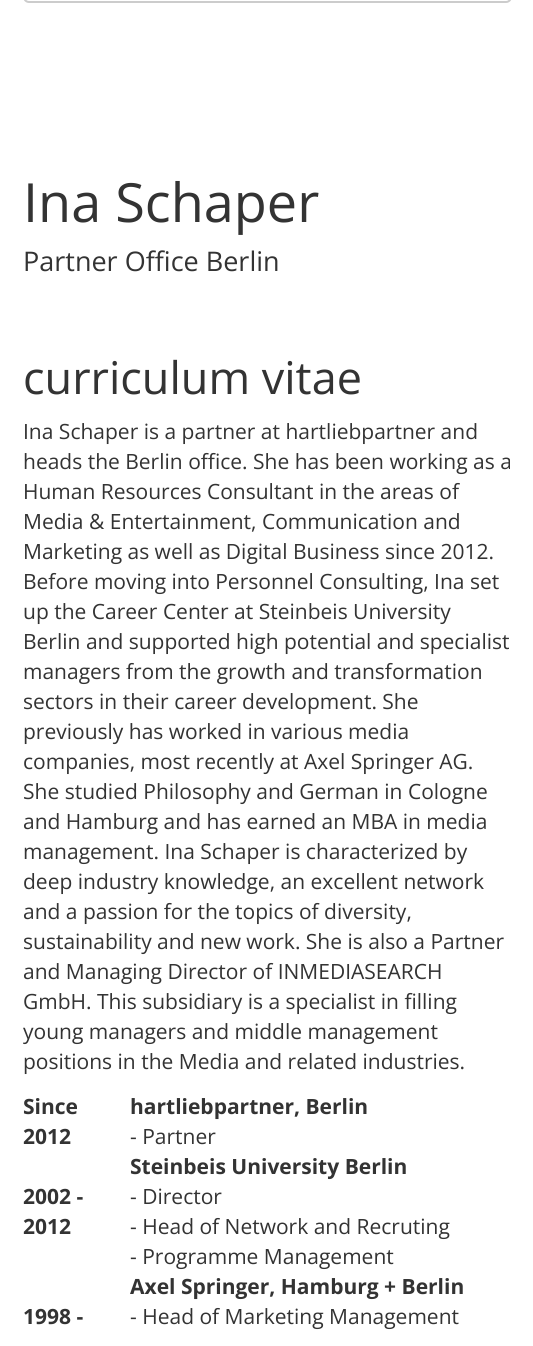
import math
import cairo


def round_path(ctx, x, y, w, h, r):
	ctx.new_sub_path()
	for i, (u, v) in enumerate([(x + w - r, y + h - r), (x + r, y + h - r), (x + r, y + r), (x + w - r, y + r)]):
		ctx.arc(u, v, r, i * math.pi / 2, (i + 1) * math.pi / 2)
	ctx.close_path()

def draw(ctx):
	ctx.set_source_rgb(1, 1, 1)
	ctx.paint()
	round_path(ctx, 24, -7, 487, 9, 5)
	ctx.set_source_rgb(0.8, 0.8, 0.8)
	ctx.stroke()
	ctx.select_font_face('Open Sans')
	ctx.set_font_size(54)
	ctx.set_source_rgb(0.2, 0.2, 0.2)
	ctx.move_to(23, 222)
	ctx.show_text('Ina Schaper')
	ctx.set_font_size(27)
	ctx.move_to(23, 271)
	ctx.show_text('Partner Office Berlin')
	ctx.set_font_size(45)
	ctx.move_to(23, 394)
	ctx.show_text('curriculum vitae')
	ctx.set_font_size(21)
	for x, y, s in [
		(23, 439, 'Ina Schaper is a partner at hartliebpartner and'),
		(23, 469, 'heads the Berlin office. She has been working as a'),
		(23, 499, 'Human Resources Consultant in the areas of'),
		(23, 529, 'Media & Entertainment, Communication and'),
		(23, 559, 'Marketing as well as Digital Business since 2012.'),
		(23, 589, 'Before moving into Personnel Consulting, Ina set'),
		(23, 619, 'up the Career Center at Steinbeis University'),
		(23, 649, 'Berlin and supported high potential and specialist'),
		(23, 679, 'managers from the growth and transformation'),
		(23, 709, 'sectors in their career development. She'),
		(23, 739, 'previously has worked in various media'),
		(23, 769, 'companies, most recently at Axel Springer AG.'),
		(23, 799, 'She studied Philosophy and German in Cologne'),
		(23, 829, 'and Hamburg and has earned an MBA in media'),
		(23, 859, 'management. Ina Schaper is characterized by'),
		(23, 889, 'deep industry knowledge, an excellent network'),
		(23, 919, 'and a passion for the topics of diversity,'),
		(23, 949, 'sustainability and new work. She is also a Partner'),
		(23, 979, 'and Managing Director of INMEDIASEARCH'),
		(23, 1009, 'GmbH. This subsidiary is a specialist in filling'),
		(23, 1039, 'young managers and middle management'),
		(23, 1069, 'positions in the Media and related industries.'),
	]:
		ctx.move_to(x, y)
		ctx.show_text(s)
	ctx.select_font_face('Open Sans', cairo.FONT_SLANT_NORMAL, cairo.FONT_WEIGHT_BOLD)
	for x, y, s in [
		(23, 1114, 'Since'),
		(23, 1144, '2012'),
		(130, 1114, 'hartliebpartner, Berlin'),
	]:
		ctx.move_to(x, y)
		ctx.show_text(s)
	ctx.select_font_face('Open Sans')
	ctx.move_to(130, 1144)
	ctx.show_text('- Partner')
	ctx.select_font_face('Open Sans', cairo.FONT_SLANT_NORMAL, cairo.FONT_WEIGHT_BOLD)
	for x, y, s in [
		(23, 1204, '2002 -'),
		(23, 1234, '2012'),
		(130, 1174, 'Steinbeis University Berlin'),
	]:
		ctx.move_to(x, y)
		ctx.show_text(s)
	ctx.select_font_face('Open Sans')
	for x, y, s in [
		(130, 1204, '- Director'),
		(130, 1234, '- Head of Network and Recruting'),
		(130, 1264, '- Programme Management'),
	]:
		ctx.move_to(x, y)
		ctx.show_text(s)
	ctx.select_font_face('Open Sans', cairo.FONT_SLANT_NORMAL, cairo.FONT_WEIGHT_BOLD)
	ctx.move_to(23, 1324)
	ctx.show_text('1998 -')
	ctx.move_to(130, 1294)
	ctx.show_text('Axel Springer, Hamburg + Berlin')
	ctx.select_font_face('Open Sans')
	ctx.move_to(130, 1324)
	ctx.show_text('- Head of Marketing Management')


surface = cairo.ImageSurface(cairo.FORMAT_RGB24, 533, 1346)
ctx = cairo.Context(surface)
options = cairo.FontOptions()
options.set_hint_metrics(cairo.HINT_METRICS_OFF)
options.set_hint_style(cairo.HINT_STYLE_NONE)
ctx.set_font_options(options)
ctx.set_miter_limit(4)
draw(ctx)
surface.write_to_png('image.png')
